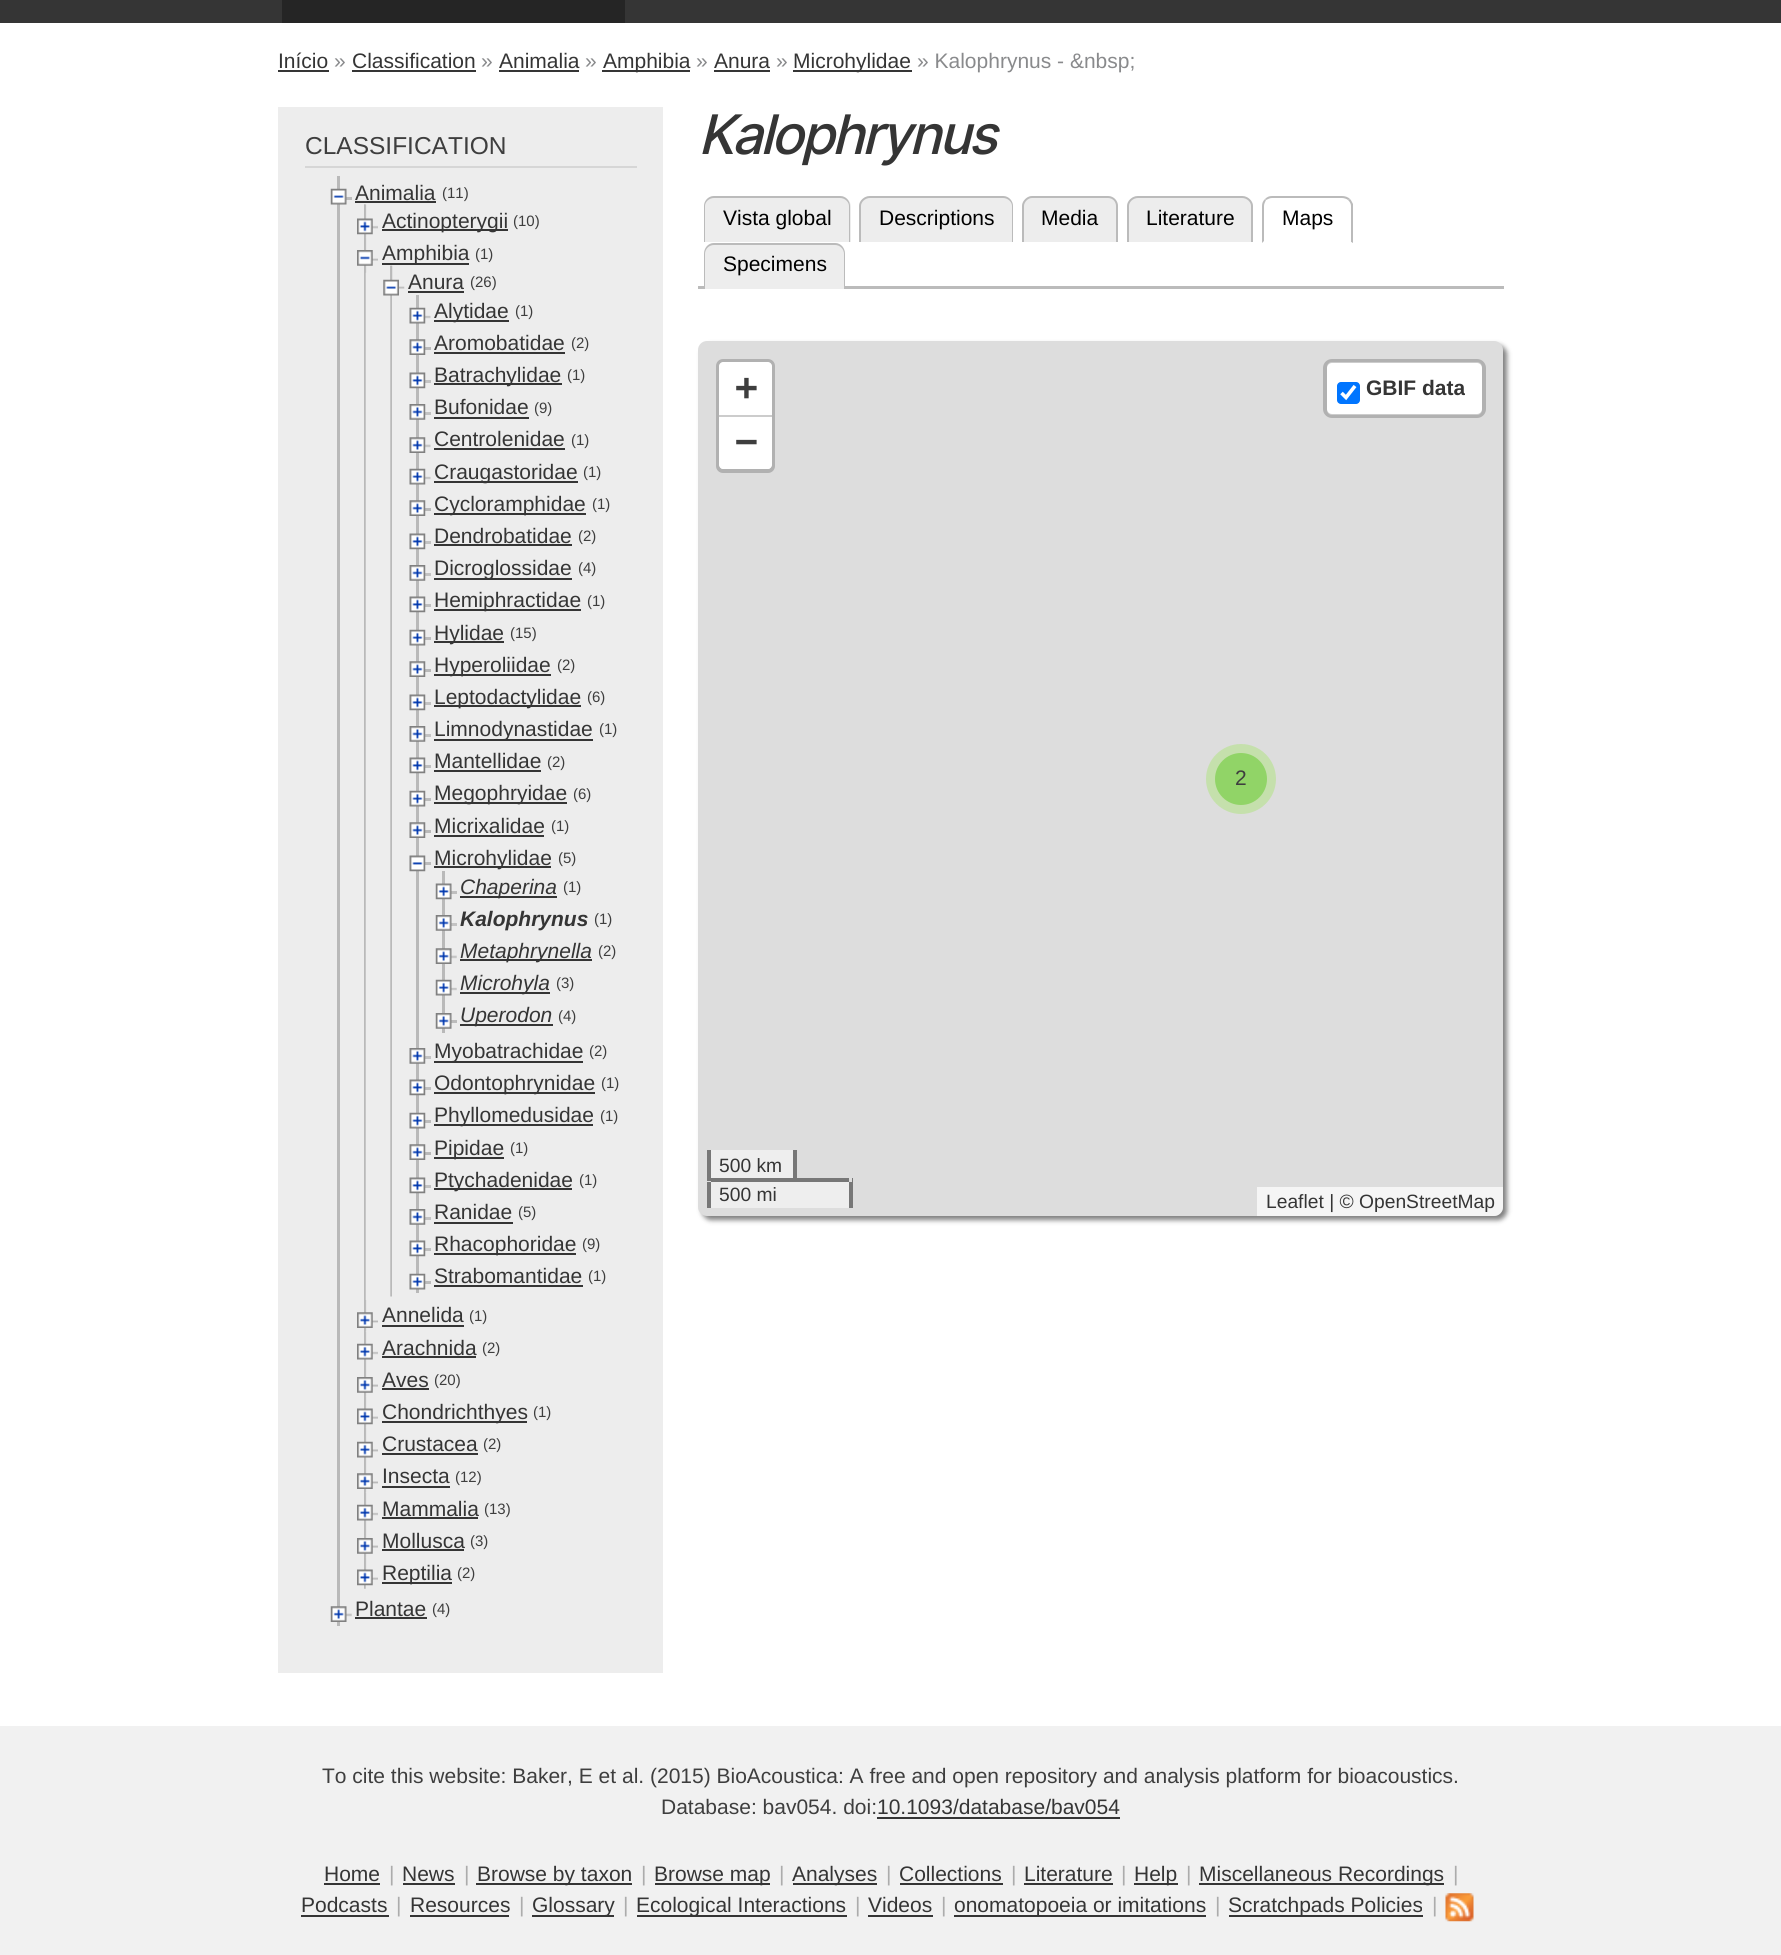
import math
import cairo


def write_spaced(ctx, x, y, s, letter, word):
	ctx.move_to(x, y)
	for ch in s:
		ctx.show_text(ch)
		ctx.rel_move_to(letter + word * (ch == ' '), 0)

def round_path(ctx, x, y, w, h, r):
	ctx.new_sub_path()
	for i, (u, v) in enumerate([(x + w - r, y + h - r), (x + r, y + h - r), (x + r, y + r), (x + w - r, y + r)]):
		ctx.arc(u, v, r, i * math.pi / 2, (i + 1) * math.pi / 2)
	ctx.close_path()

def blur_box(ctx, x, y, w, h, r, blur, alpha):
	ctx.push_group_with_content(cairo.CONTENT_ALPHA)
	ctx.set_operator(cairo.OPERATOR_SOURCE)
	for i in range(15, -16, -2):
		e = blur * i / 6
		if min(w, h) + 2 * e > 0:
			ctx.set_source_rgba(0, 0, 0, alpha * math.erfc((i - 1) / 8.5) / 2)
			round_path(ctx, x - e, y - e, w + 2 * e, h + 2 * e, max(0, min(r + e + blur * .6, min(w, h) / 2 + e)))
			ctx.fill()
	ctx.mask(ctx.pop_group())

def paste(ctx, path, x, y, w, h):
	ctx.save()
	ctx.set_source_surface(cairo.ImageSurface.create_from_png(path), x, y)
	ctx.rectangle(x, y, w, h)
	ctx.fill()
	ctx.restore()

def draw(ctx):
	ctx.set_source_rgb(1, 1, 1)
	ctx.paint()
	ctx.set_source_rgb(0.208, 0.208, 0.208)
	ctx.rectangle(0, 0, 1781, 23)
	ctx.fill()
	ctx.set_source_rgb(0.145, 0.145, 0.145)
	ctx.rectangle(282, 0, 343, 23)
	ctx.fill()
	ctx.select_font_face('Liberation Sans')
	ctx.set_font_size(21)
	ctx.set_source_rgb(0.208, 0.208, 0.208)
	ctx.move_to(278, 68)
	ctx.show_text('Início')
	ctx.rectangle(278, 70, 51, 2)
	ctx.fill()
	ctx.set_source_rgb(0.537, 0.541, 0.549)
	ctx.move_to(334, 68)
	ctx.show_text('»')
	ctx.set_source_rgb(0.208, 0.208, 0.208)
	ctx.move_to(352, 68)
	ctx.show_text('Classification')
	ctx.rectangle(352, 70, 124, 2)
	ctx.fill()
	ctx.set_source_rgb(0.537, 0.541, 0.549)
	ctx.move_to(481, 68)
	ctx.show_text('»')
	ctx.set_source_rgb(0.208, 0.208, 0.208)
	ctx.move_to(499, 68)
	ctx.show_text('Animalia')
	ctx.rectangle(499, 70, 80, 2)
	ctx.fill()
	ctx.set_source_rgb(0.537, 0.541, 0.549)
	ctx.move_to(585, 68)
	ctx.show_text('»')
	ctx.set_source_rgb(0.208, 0.208, 0.208)
	ctx.rectangle(602, 70, 88, 2)
	ctx.fill()
	ctx.move_to(603, 68)
	ctx.show_text('Amphibia')
	ctx.set_source_rgb(0.537, 0.541, 0.549)
	ctx.move_to(696, 68)
	ctx.show_text('»')
	ctx.set_source_rgb(0.208, 0.208, 0.208)
	ctx.move_to(714, 68)
	ctx.show_text('Anura')
	ctx.rectangle(714, 70, 56, 2)
	ctx.fill()
	ctx.set_source_rgb(0.537, 0.541, 0.549)
	ctx.move_to(776, 68)
	ctx.show_text('»')
	ctx.set_source_rgb(0.208, 0.208, 0.208)
	ctx.rectangle(793, 70, 119, 2)
	ctx.fill()
	ctx.move_to(793, 68)
	ctx.show_text('Microhylidae')
	ctx.set_source_rgb(0.537, 0.541, 0.549)
	ctx.move_to(917, 68)
	ctx.show_text('» Kalophrynus - &nbsp;')
	ctx.set_source_rgb(0.929, 0.929, 0.929)
	ctx.rectangle(278, 107, 385, 1566)
	ctx.fill()
	ctx.set_source_rgb(0.839, 0.839, 0.839)
	ctx.rectangle(305, 166, 332, 2)
	ctx.fill()
	ctx.set_font_size(24.5)
	ctx.set_source_rgb(0.243, 0.243, 0.243)
	ctx.move_to(305, 154)
	ctx.show_text('CLASSIFICATION')
	ctx.set_source_rgb(0.725, 0.725, 0.725)
	ctx.rectangle(337, 176, 3, 1450)
	ctx.fill()
	ctx.set_source_rgb(0.737, 0.737, 0.737)
	ctx.rectangle(340, 197, 12, 3)
	ctx.fill()
	paste(ctx, 'media/1.png', 330, 188, 17, 17)
	ctx.set_font_size(21)
	ctx.set_source_rgb(0.208, 0.208, 0.208)
	ctx.move_to(355, 200)
	ctx.show_text('Animalia')
	ctx.rectangle(355, 201, 81, 2)
	ctx.fill()
	ctx.set_font_size(15)
	ctx.set_source_rgb(0.243, 0.243, 0.243)
	ctx.move_to(442, 198)
	ctx.show_text('(11)')
	paste(ctx, 'media/2.png', 364, 204, 2, 1385)
	paste(ctx, 'media/3.png', 364, 204, 14, 34)
	paste(ctx, 'media/4.png', 357, 218, 16, 17)
	ctx.set_source_rgb(0.208, 0.208, 0.208)
	ctx.rectangle(382, 229, 126, 2)
	ctx.fill()
	ctx.set_font_size(21)
	ctx.move_to(382, 228)
	ctx.show_text('Actinopterygii')
	ctx.set_font_size(15)
	ctx.set_source_rgb(0.243, 0.243, 0.243)
	ctx.move_to(513, 226)
	ctx.show_text('(10)')
	paste(ctx, 'media/5.png', 365, 238, 13, 35)
	paste(ctx, 'media/6.png', 357, 250, 16, 16)
	ctx.set_source_rgb(0.208, 0.208, 0.208)
	ctx.rectangle(382, 263, 87, 2)
	ctx.fill()
	ctx.set_font_size(21)
	ctx.move_to(382, 260)
	ctx.show_text('Amphibia')
	ctx.set_font_size(15)
	ctx.set_source_rgb(0.243, 0.243, 0.243)
	ctx.move_to(475, 259)
	ctx.show_text('(1)')
	paste(ctx, 'media/7.png', 390, 265, 2, 1032)
	paste(ctx, 'media/8.png', 390, 265, 15, 24)
	paste(ctx, 'media/9.png', 383, 279, 16, 17)
	ctx.set_font_size(21)
	ctx.set_source_rgb(0.208, 0.208, 0.208)
	ctx.move_to(408, 289)
	ctx.show_text('Anura')
	ctx.rectangle(408, 291, 56, 2)
	ctx.fill()
	ctx.set_font_size(15)
	ctx.set_source_rgb(0.243, 0.243, 0.243)
	ctx.move_to(470, 287)
	ctx.show_text('(26)')
	ctx.set_source_rgb(0.725, 0.725, 0.725)
	ctx.rectangle(416, 295, 3, 998)
	ctx.fill()
	paste(ctx, 'media/10.png', 425, 315, 6, 4)
	paste(ctx, 'media/11.png', 409, 307, 17, 17)
	ctx.set_source_rgb(0.208, 0.208, 0.208)
	ctx.rectangle(434, 320, 75, 2)
	ctx.fill()
	ctx.set_font_size(21)
	ctx.move_to(434, 318)
	ctx.show_text('Alytidae')
	ctx.set_font_size(15)
	ctx.set_source_rgb(0.243, 0.243, 0.243)
	ctx.move_to(515, 316)
	ctx.show_text('(1)')
	ctx.set_source_rgb(0.725, 0.725, 0.725)
	ctx.rectangle(419, 347, 12, 3)
	ctx.fill()
	paste(ctx, 'media/12.png', 409, 339, 17, 16)
	ctx.set_font_size(21)
	ctx.set_source_rgb(0.208, 0.208, 0.208)
	ctx.move_to(434, 350)
	ctx.show_text('Aromobatidae')
	ctx.rectangle(434, 352, 131, 2)
	ctx.fill()
	ctx.set_font_size(15)
	ctx.set_source_rgb(0.243, 0.243, 0.243)
	ctx.move_to(571, 348)
	ctx.show_text('(2)')
	ctx.set_source_rgb(0.765, 0.765, 0.765)
	ctx.rectangle(419, 380, 12, 3)
	ctx.fill()
	paste(ctx, 'media/13.png', 409, 372, 17, 17)
	ctx.set_source_rgb(0.208, 0.208, 0.208)
	ctx.rectangle(434, 383, 128, 2)
	ctx.fill()
	ctx.set_font_size(21)
	ctx.move_to(434, 382)
	ctx.show_text('Batrachylidae')
	ctx.set_font_size(15)
	ctx.set_source_rgb(0.243, 0.243, 0.243)
	ctx.move_to(567, 380)
	ctx.show_text('(1)')
	ctx.set_source_rgb(0.765, 0.765, 0.765)
	ctx.rectangle(419, 412, 12, 3)
	ctx.fill()
	paste(ctx, 'media/14.png', 409, 404, 17, 16)
	ctx.set_font_size(21)
	ctx.set_source_rgb(0.208, 0.208, 0.208)
	ctx.move_to(434, 414)
	ctx.show_text('Bufonidae')
	ctx.rectangle(434, 417, 95, 2)
	ctx.fill()
	ctx.set_font_size(15)
	ctx.set_source_rgb(0.243, 0.243, 0.243)
	ctx.move_to(534, 413)
	ctx.show_text('(9)')
	paste(ctx, 'media/15.png', 425, 444, 6, 4)
	paste(ctx, 'media/16.png', 409, 437, 17, 16)
	ctx.set_font_size(21)
	ctx.set_source_rgb(0.208, 0.208, 0.208)
	ctx.move_to(434, 446)
	ctx.show_text('Centrolenidae')
	ctx.rectangle(434, 448, 131, 2)
	ctx.fill()
	ctx.set_font_size(15)
	ctx.set_source_rgb(0.243, 0.243, 0.243)
	ctx.move_to(571, 445)
	ctx.show_text('(1)')
	paste(ctx, 'media/10.png', 425, 476, 6, 4)
	paste(ctx, 'media/11.png', 409, 468, 17, 17)
	ctx.set_source_rgb(0.208, 0.208, 0.208)
	ctx.rectangle(434, 481, 144, 2)
	ctx.fill()
	ctx.set_font_size(21)
	ctx.move_to(434, 479)
	ctx.show_text('Craugastoridae')
	ctx.set_font_size(15)
	ctx.set_source_rgb(0.243, 0.243, 0.243)
	ctx.move_to(583, 477)
	ctx.show_text('(1)')
	ctx.set_source_rgb(0.725, 0.725, 0.725)
	ctx.rectangle(419, 508, 12, 3)
	ctx.fill()
	paste(ctx, 'media/12.png', 409, 500, 17, 16)
	ctx.set_source_rgb(0.208, 0.208, 0.208)
	ctx.rectangle(434, 513, 152, 2)
	ctx.fill()
	ctx.set_font_size(21)
	ctx.move_to(434, 511)
	ctx.show_text('Cycloramphidae')
	ctx.set_font_size(15)
	ctx.set_source_rgb(0.243, 0.243, 0.243)
	ctx.move_to(592, 509)
	ctx.show_text('(1)')
	ctx.set_source_rgb(0.765, 0.765, 0.765)
	ctx.rectangle(419, 541, 12, 3)
	ctx.fill()
	paste(ctx, 'media/13.png', 409, 533, 17, 17)
	ctx.set_font_size(21)
	ctx.set_source_rgb(0.208, 0.208, 0.208)
	ctx.move_to(434, 543)
	ctx.show_text('Dendrobatidae')
	ctx.rectangle(434, 544, 138, 2)
	ctx.fill()
	ctx.set_font_size(15)
	ctx.set_source_rgb(0.243, 0.243, 0.243)
	ctx.move_to(578, 541)
	ctx.show_text('(2)')
	ctx.set_source_rgb(0.765, 0.765, 0.765)
	ctx.rectangle(419, 573, 12, 3)
	ctx.fill()
	paste(ctx, 'media/14.png', 409, 565, 17, 16)
	ctx.set_source_rgb(0.208, 0.208, 0.208)
	ctx.rectangle(434, 578, 138, 2)
	ctx.fill()
	ctx.set_font_size(21)
	ctx.move_to(434, 575)
	ctx.show_text('Dicroglossidae')
	ctx.set_font_size(15)
	ctx.set_source_rgb(0.243, 0.243, 0.243)
	ctx.move_to(578, 573)
	ctx.show_text('(4)')
	ctx.set_source_rgb(0.749, 0.749, 0.749)
	ctx.rectangle(419, 604, 12, 3)
	ctx.fill()
	paste(ctx, 'media/17.png', 409, 596, 17, 17)
	ctx.set_source_rgb(0.208, 0.208, 0.208)
	ctx.rectangle(434, 609, 147, 2)
	ctx.fill()
	ctx.set_font_size(21)
	ctx.move_to(434, 607)
	ctx.show_text('Hemiphractidae')
	ctx.set_font_size(15)
	ctx.set_source_rgb(0.243, 0.243, 0.243)
	ctx.move_to(587, 606)
	ctx.show_text('(1)')
	ctx.set_source_rgb(0.737, 0.737, 0.737)
	ctx.rectangle(419, 637, 12, 3)
	ctx.fill()
	paste(ctx, 'media/18.png', 409, 629, 17, 17)
	ctx.set_source_rgb(0.208, 0.208, 0.208)
	ctx.rectangle(434, 641, 70, 2)
	ctx.fill()
	ctx.set_font_size(21)
	ctx.move_to(434, 640)
	ctx.show_text('Hylidae')
	ctx.set_font_size(15)
	ctx.set_source_rgb(0.243, 0.243, 0.243)
	ctx.move_to(510, 638)
	ctx.show_text('(15)')
	ctx.set_source_rgb(0.725, 0.725, 0.725)
	ctx.rectangle(419, 669, 12, 3)
	ctx.fill()
	paste(ctx, 'media/12.png', 409, 661, 17, 16)
	ctx.set_source_rgb(0.208, 0.208, 0.208)
	ctx.rectangle(434, 674, 117, 2)
	ctx.fill()
	ctx.set_font_size(21)
	ctx.move_to(434, 672)
	ctx.show_text('Hyperoliidae')
	ctx.set_font_size(15)
	ctx.set_source_rgb(0.243, 0.243, 0.243)
	ctx.move_to(557, 670)
	ctx.show_text('(2)')
	ctx.set_source_rgb(0.765, 0.765, 0.765)
	ctx.rectangle(419, 702, 12, 3)
	ctx.fill()
	paste(ctx, 'media/13.png', 409, 694, 17, 17)
	ctx.set_source_rgb(0.208, 0.208, 0.208)
	ctx.rectangle(434, 705, 147, 2)
	ctx.fill()
	ctx.set_font_size(21)
	ctx.move_to(434, 704)
	ctx.show_text('Leptodactylidae')
	ctx.set_font_size(15)
	ctx.set_source_rgb(0.243, 0.243, 0.243)
	ctx.move_to(587, 702)
	ctx.show_text('(6)')
	ctx.set_source_rgb(0.765, 0.765, 0.765)
	ctx.rectangle(419, 734, 12, 3)
	ctx.fill()
	paste(ctx, 'media/14.png', 409, 726, 17, 16)
	ctx.set_source_rgb(0.208, 0.208, 0.208)
	ctx.rectangle(434, 739, 159, 2)
	ctx.fill()
	ctx.set_font_size(21)
	ctx.move_to(434, 736)
	ctx.show_text('Limnodynastidae')
	ctx.set_font_size(15)
	ctx.set_source_rgb(0.243, 0.243, 0.243)
	ctx.move_to(599, 734)
	ctx.show_text('(1)')
	ctx.set_source_rgb(0.749, 0.749, 0.749)
	ctx.rectangle(419, 765, 12, 3)
	ctx.fill()
	paste(ctx, 'media/17.png', 409, 757, 17, 17)
	ctx.set_font_size(21)
	ctx.set_source_rgb(0.208, 0.208, 0.208)
	ctx.move_to(434, 768)
	ctx.show_text('Mantellidae')
	ctx.rectangle(434, 770, 107, 2)
	ctx.fill()
	ctx.set_font_size(15)
	ctx.set_source_rgb(0.243, 0.243, 0.243)
	ctx.move_to(547, 767)
	ctx.show_text('(2)')
	ctx.set_source_rgb(0.737, 0.737, 0.737)
	ctx.rectangle(419, 798, 12, 3)
	ctx.fill()
	paste(ctx, 'media/18.png', 409, 790, 17, 17)
	ctx.set_source_rgb(0.208, 0.208, 0.208)
	ctx.rectangle(434, 802, 133, 2)
	ctx.fill()
	ctx.set_font_size(21)
	ctx.move_to(434, 800)
	ctx.show_text('Megophryidae')
	ctx.set_font_size(15)
	ctx.set_source_rgb(0.243, 0.243, 0.243)
	ctx.move_to(573, 799)
	ctx.show_text('(6)')
	ctx.set_source_rgb(0.725, 0.725, 0.725)
	ctx.rectangle(419, 830, 12, 3)
	ctx.fill()
	paste(ctx, 'media/12.png', 409, 822, 17, 16)
	ctx.set_font_size(21)
	ctx.set_source_rgb(0.208, 0.208, 0.208)
	ctx.move_to(434, 833)
	ctx.show_text('Micrixalidae')
	ctx.rectangle(434, 835, 110, 2)
	ctx.fill()
	ctx.set_font_size(15)
	ctx.set_source_rgb(0.243, 0.243, 0.243)
	ctx.move_to(551, 831)
	ctx.show_text('(1)')
	ctx.set_source_rgb(0.737, 0.737, 0.737)
	ctx.rectangle(419, 862, 12, 3)
	ctx.fill()
	paste(ctx, 'media/19.png', 409, 855, 17, 17)
	ctx.set_source_rgb(0.208, 0.208, 0.208)
	ctx.rectangle(434, 866, 117, 2)
	ctx.fill()
	ctx.set_font_size(21)
	ctx.move_to(434, 865)
	ctx.show_text('Microhylidae')
	ctx.set_font_size(15)
	ctx.set_source_rgb(0.243, 0.243, 0.243)
	ctx.move_to(558, 863)
	ctx.show_text('(5)')
	ctx.set_source_rgb(0.725, 0.725, 0.725)
	ctx.rectangle(442, 871, 3, 162)
	ctx.fill()
	ctx.set_source_rgb(0.749, 0.749, 0.749)
	ctx.rectangle(445, 891, 12, 3)
	ctx.fill()
	paste(ctx, 'media/20.png', 435, 883, 17, 17)
	ctx.set_source_rgb(0.208, 0.208, 0.208)
	ctx.rectangle(460, 896, 97, 2)
	ctx.fill()
	ctx.select_font_face('Liberation Sans', cairo.FONT_SLANT_ITALIC)
	ctx.set_font_size(21)
	ctx.move_to(460, 894)
	ctx.show_text('Chaperina')
	ctx.select_font_face('Liberation Sans')
	ctx.set_font_size(15)
	ctx.set_source_rgb(0.243, 0.243, 0.243)
	ctx.move_to(563, 892)
	ctx.show_text('(1)')
	ctx.set_source_rgb(0.765, 0.765, 0.765)
	ctx.rectangle(445, 923, 12, 3)
	ctx.fill()
	paste(ctx, 'media/21.png', 435, 915, 17, 16)
	ctx.select_font_face('Liberation Sans', cairo.FONT_SLANT_ITALIC, cairo.FONT_WEIGHT_BOLD)
	ctx.set_font_size(21)
	ctx.set_source_rgb(0.208, 0.208, 0.208)
	ctx.move_to(460, 926)
	ctx.show_text('Kalophrynus')
	ctx.select_font_face('Liberation Sans')
	ctx.set_font_size(15)
	ctx.set_source_rgb(0.243, 0.243, 0.243)
	ctx.move_to(594, 924)
	ctx.show_text('(1)')
	paste(ctx, 'media/22.png', 451, 955, 6, 4)
	paste(ctx, 'media/23.png', 435, 948, 17, 16)
	ctx.set_source_rgb(0.208, 0.208, 0.208)
	ctx.rectangle(460, 959, 132, 2)
	ctx.fill()
	ctx.select_font_face('Liberation Sans', cairo.FONT_SLANT_ITALIC)
	ctx.set_font_size(21)
	ctx.move_to(460, 958)
	ctx.show_text('Metaphrynella')
	ctx.select_font_face('Liberation Sans')
	ctx.set_font_size(15)
	ctx.set_source_rgb(0.243, 0.243, 0.243)
	ctx.move_to(598, 956)
	ctx.show_text('(2)')
	paste(ctx, 'media/24.png', 451, 987, 6, 4)
	paste(ctx, 'media/25.png', 435, 979, 17, 17)
	ctx.set_source_rgb(0.208, 0.208, 0.208)
	ctx.rectangle(460, 992, 90, 2)
	ctx.fill()
	ctx.select_font_face('Liberation Sans', cairo.FONT_SLANT_ITALIC)
	ctx.set_font_size(21)
	ctx.move_to(460, 990)
	ctx.show_text('Microhyla')
	ctx.select_font_face('Liberation Sans')
	ctx.set_font_size(15)
	ctx.set_source_rgb(0.243, 0.243, 0.243)
	ctx.move_to(556, 988)
	ctx.show_text('(3)')
	ctx.set_source_rgb(0.737, 0.737, 0.737)
	ctx.rectangle(445, 1020, 12, 3)
	ctx.fill()
	paste(ctx, 'media/26.png', 435, 1013, 17, 16)
	ctx.set_source_rgb(0.208, 0.208, 0.208)
	ctx.rectangle(460, 1024, 93, 2)
	ctx.fill()
	ctx.select_font_face('Liberation Sans', cairo.FONT_SLANT_ITALIC)
	ctx.set_font_size(21)
	ctx.move_to(460, 1022)
	ctx.show_text('Uperodon')
	ctx.select_font_face('Liberation Sans')
	ctx.set_font_size(15)
	ctx.set_source_rgb(0.243, 0.243, 0.243)
	ctx.move_to(558, 1021)
	ctx.show_text('(4)')
	ctx.set_source_rgb(0.765, 0.765, 0.765)
	ctx.rectangle(419, 1056, 12, 3)
	ctx.fill()
	paste(ctx, 'media/14.png', 409, 1048, 17, 16)
	ctx.set_source_rgb(0.208, 0.208, 0.208)
	ctx.rectangle(434, 1061, 149, 2)
	ctx.fill()
	ctx.set_font_size(21)
	ctx.move_to(434, 1058)
	ctx.show_text('Myobatrachidae')
	ctx.set_font_size(15)
	ctx.set_source_rgb(0.243, 0.243, 0.243)
	ctx.move_to(589, 1056)
	ctx.show_text('(2)')
	ctx.set_source_rgb(0.749, 0.749, 0.749)
	ctx.rectangle(419, 1087, 12, 3)
	ctx.fill()
	paste(ctx, 'media/17.png', 409, 1079, 17, 17)
	ctx.set_source_rgb(0.208, 0.208, 0.208)
	ctx.rectangle(434, 1092, 161, 2)
	ctx.fill()
	ctx.set_font_size(21)
	ctx.move_to(434, 1090)
	ctx.show_text('Odontophrynidae')
	ctx.set_font_size(15)
	ctx.set_source_rgb(0.243, 0.243, 0.243)
	ctx.move_to(601, 1088)
	ctx.show_text('(1)')
	ctx.set_source_rgb(0.737, 0.737, 0.737)
	ctx.rectangle(419, 1120, 12, 3)
	ctx.fill()
	paste(ctx, 'media/18.png', 409, 1112, 17, 17)
	ctx.set_source_rgb(0.208, 0.208, 0.208)
	ctx.rectangle(434, 1124, 159, 2)
	ctx.fill()
	ctx.set_font_size(21)
	ctx.move_to(434, 1122)
	ctx.show_text('Phyllomedusidae')
	ctx.set_font_size(15)
	ctx.set_source_rgb(0.243, 0.243, 0.243)
	ctx.move_to(600, 1121)
	ctx.show_text('(1)')
	ctx.set_source_rgb(0.725, 0.725, 0.725)
	ctx.rectangle(419, 1152, 12, 3)
	ctx.fill()
	paste(ctx, 'media/12.png', 409, 1144, 17, 16)
	ctx.set_source_rgb(0.208, 0.208, 0.208)
	ctx.rectangle(434, 1157, 70, 2)
	ctx.fill()
	ctx.set_font_size(21)
	ctx.move_to(434, 1155)
	ctx.show_text('Pipidae')
	ctx.set_font_size(15)
	ctx.set_source_rgb(0.243, 0.243, 0.243)
	ctx.move_to(510, 1153)
	ctx.show_text('(1)')
	ctx.set_source_rgb(0.765, 0.765, 0.765)
	ctx.rectangle(419, 1185, 12, 3)
	ctx.fill()
	paste(ctx, 'media/13.png', 409, 1177, 17, 17)
	ctx.set_source_rgb(0.208, 0.208, 0.208)
	ctx.rectangle(434, 1188, 138, 2)
	ctx.fill()
	ctx.set_font_size(21)
	ctx.move_to(434, 1187)
	ctx.show_text('Ptychadenidae')
	ctx.set_font_size(15)
	ctx.set_source_rgb(0.243, 0.243, 0.243)
	ctx.move_to(579, 1185)
	ctx.show_text('(1)')
	ctx.set_source_rgb(0.765, 0.765, 0.765)
	ctx.rectangle(419, 1217, 12, 3)
	ctx.fill()
	paste(ctx, 'media/14.png', 409, 1209, 17, 16)
	ctx.set_font_size(21)
	ctx.set_source_rgb(0.208, 0.208, 0.208)
	ctx.move_to(434, 1219)
	ctx.show_text('Ranidae')
	ctx.rectangle(434, 1222, 79, 2)
	ctx.fill()
	ctx.set_font_size(15)
	ctx.set_source_rgb(0.243, 0.243, 0.243)
	ctx.move_to(518, 1217)
	ctx.show_text('(5)')
	ctx.set_source_rgb(0.749, 0.749, 0.749)
	ctx.rectangle(419, 1248, 12, 3)
	ctx.fill()
	paste(ctx, 'media/17.png', 409, 1240, 17, 17)
	ctx.set_source_rgb(0.208, 0.208, 0.208)
	ctx.rectangle(434, 1253, 142, 2)
	ctx.fill()
	ctx.set_font_size(21)
	ctx.move_to(434, 1251)
	ctx.show_text('Rhacophoridae')
	ctx.set_font_size(15)
	ctx.set_source_rgb(0.243, 0.243, 0.243)
	ctx.move_to(582, 1249)
	ctx.show_text('(9)')
	ctx.set_source_rgb(0.737, 0.737, 0.737)
	ctx.rectangle(419, 1281, 12, 3)
	ctx.fill()
	paste(ctx, 'media/18.png', 409, 1273, 17, 17)
	ctx.set_font_size(21)
	ctx.set_source_rgb(0.208, 0.208, 0.208)
	ctx.move_to(434, 1283)
	ctx.show_text('Strabomantidae')
	ctx.rectangle(434, 1285, 149, 2)
	ctx.fill()
	ctx.set_font_size(15)
	ctx.set_source_rgb(0.243, 0.243, 0.243)
	ctx.move_to(588, 1281)
	ctx.show_text('(1)')
	paste(ctx, 'media/27.png', 365, 1300, 13, 32)
	paste(ctx, 'media/28.png', 357, 1312, 16, 16)
	ctx.set_font_size(21)
	ctx.set_source_rgb(0.208, 0.208, 0.208)
	ctx.move_to(382, 1322)
	ctx.show_text('Annelida')
	ctx.rectangle(382, 1325, 82, 2)
	ctx.fill()
	ctx.set_font_size(15)
	ctx.set_source_rgb(0.243, 0.243, 0.243)
	ctx.move_to(469, 1321)
	ctx.show_text('(1)')
	paste(ctx, 'media/29.png', 365, 1332, 13, 31)
	paste(ctx, 'media/30.png', 357, 1343, 16, 17)
	ctx.set_font_size(21)
	ctx.set_source_rgb(0.208, 0.208, 0.208)
	ctx.move_to(382, 1355)
	ctx.show_text('Arachnida')
	ctx.rectangle(382, 1356, 94, 2)
	ctx.fill()
	ctx.set_font_size(15)
	ctx.set_source_rgb(0.243, 0.243, 0.243)
	ctx.move_to(482, 1353)
	ctx.show_text('(2)')
	paste(ctx, 'media/31.png', 365, 1363, 13, 33)
	paste(ctx, 'media/32.png', 357, 1377, 16, 16)
	ctx.set_font_size(21)
	ctx.set_source_rgb(0.208, 0.208, 0.208)
	ctx.move_to(382, 1387)
	ctx.show_text('Aves')
	ctx.rectangle(382, 1388, 47, 2)
	ctx.fill()
	ctx.set_font_size(15)
	ctx.set_source_rgb(0.243, 0.243, 0.243)
	ctx.move_to(434, 1385)
	ctx.show_text('(20)')
	paste(ctx, 'media/33.png', 365, 1396, 13, 32)
	paste(ctx, 'media/34.png', 357, 1408, 16, 17)
	ctx.set_source_rgb(0.208, 0.208, 0.208)
	ctx.rectangle(382, 1421, 145, 2)
	ctx.fill()
	ctx.set_font_size(21)
	ctx.move_to(382, 1419)
	ctx.show_text('Chondrichthyes')
	ctx.set_font_size(15)
	ctx.set_source_rgb(0.243, 0.243, 0.243)
	ctx.move_to(533, 1417)
	ctx.show_text('(1)')
	paste(ctx, 'media/35.png', 365, 1428, 13, 33)
	paste(ctx, 'media/36.png', 357, 1441, 16, 17)
	ctx.set_font_size(21)
	ctx.set_source_rgb(0.208, 0.208, 0.208)
	ctx.move_to(382, 1451)
	ctx.show_text('Crustacea')
	ctx.rectangle(382, 1453, 96, 2)
	ctx.fill()
	ctx.set_font_size(15)
	ctx.set_source_rgb(0.243, 0.243, 0.243)
	ctx.move_to(483, 1449)
	ctx.show_text('(2)')
	paste(ctx, 'media/27.png', 365, 1461, 13, 32)
	paste(ctx, 'media/28.png', 357, 1473, 16, 16)
	ctx.set_font_size(21)
	ctx.set_source_rgb(0.208, 0.208, 0.208)
	ctx.move_to(382, 1483)
	ctx.show_text('Insecta')
	ctx.rectangle(382, 1486, 68, 2)
	ctx.fill()
	ctx.set_font_size(15)
	ctx.set_source_rgb(0.243, 0.243, 0.243)
	ctx.move_to(455, 1482)
	ctx.show_text('(12)')
	paste(ctx, 'media/29.png', 365, 1493, 13, 31)
	paste(ctx, 'media/37.png', 357, 1504, 16, 17)
	ctx.set_font_size(21)
	ctx.set_source_rgb(0.208, 0.208, 0.208)
	ctx.move_to(382, 1516)
	ctx.show_text('Mammalia')
	ctx.rectangle(382, 1517, 96, 2)
	ctx.fill()
	ctx.set_font_size(15)
	ctx.set_source_rgb(0.243, 0.243, 0.243)
	ctx.move_to(484, 1514)
	ctx.show_text('(13)')
	paste(ctx, 'media/31.png', 365, 1524, 13, 33)
	paste(ctx, 'media/32.png', 357, 1538, 16, 16)
	ctx.set_font_size(21)
	ctx.set_source_rgb(0.208, 0.208, 0.208)
	ctx.move_to(382, 1548)
	ctx.show_text('Mollusca')
	ctx.rectangle(382, 1549, 82, 2)
	ctx.fill()
	ctx.set_font_size(15)
	ctx.set_source_rgb(0.243, 0.243, 0.243)
	ctx.move_to(470, 1546)
	ctx.show_text('(3)')
	paste(ctx, 'media/38.png', 365, 1557, 13, 23)
	paste(ctx, 'media/39.png', 357, 1569, 16, 17)
	ctx.set_source_rgb(0.208, 0.208, 0.208)
	ctx.rectangle(382, 1582, 70, 2)
	ctx.fill()
	ctx.set_font_size(21)
	ctx.move_to(382, 1580)
	ctx.show_text('Reptilia')
	ctx.set_font_size(15)
	ctx.set_source_rgb(0.243, 0.243, 0.243)
	ctx.move_to(457, 1578)
	ctx.show_text('(2)')
	paste(ctx, 'media/22.png', 346, 1613, 6, 4)
	paste(ctx, 'media/23.png', 330, 1606, 17, 16)
	ctx.set_font_size(21)
	ctx.set_source_rgb(0.208, 0.208, 0.208)
	ctx.move_to(355, 1616)
	ctx.show_text('Plantae')
	ctx.rectangle(355, 1617, 72, 2)
	ctx.fill()
	ctx.set_font_size(15)
	ctx.set_source_rgb(0.243, 0.243, 0.243)
	ctx.move_to(432, 1614)
	ctx.show_text('(4)')
	ctx.select_font_face('Inter Medium', cairo.FONT_SLANT_ITALIC)
	ctx.set_font_size(54.5)
	ctx.set_source_rgb(0.208, 0.208, 0.208)
	write_spaced(ctx, 698, 154, 'Kalophrynus', -2.75, 0)
	ctx.set_source_rgb(0.733, 0.733, 0.733)
	ctx.rectangle(698, 286, 806, 3)
	ctx.fill()
	ctx.set_source_rgb(0.929, 0.929, 0.929)
	ctx.new_path()
	ctx.move_to(715, 196)
	ctx.line_to(840, 196)
	ctx.curve_to(846, 196, 851, 201, 851, 207)
	ctx.line_to(851, 242)
	ctx.line_to(704, 242)
	ctx.line_to(704, 207)
	ctx.curve_to(704, 201, 709, 196, 715, 196)
	ctx.close_path()
	ctx.fill()
	ctx.set_source_rgb(0.733, 0.733, 0.733)
	ctx.set_fill_rule(cairo.FILL_RULE_EVEN_ODD)
	ctx.new_path()
	ctx.move_to(714, 196)
	ctx.line_to(840, 196)
	ctx.curve_to(846, 196, 850, 201, 850, 206)
	ctx.line_to(850, 242)
	ctx.line_to(704, 242)
	ctx.line_to(704, 206)
	ctx.curve_to(704, 201, 708, 196, 714, 196)
	ctx.close_path()
	ctx.move_to(714, 198)
	ctx.line_to(840, 198)
	ctx.curve_to(845, 198, 849, 202, 849, 206)
	ctx.line_to(849, 242)
	ctx.line_to(705, 242)
	ctx.line_to(705, 206)
	ctx.curve_to(705, 202, 709, 198, 714, 198)
	ctx.close_path()
	ctx.fill()
	ctx.select_font_face('Liberation Sans')
	ctx.set_font_size(21)
	ctx.set_source_rgb(0, 0, 0)
	ctx.move_to(723, 225)
	ctx.show_text('Vista global')
	ctx.set_source_rgb(0.929, 0.929, 0.929)
	ctx.new_path()
	ctx.move_to(870, 196)
	ctx.line_to(1002, 196)
	ctx.curve_to(1008, 196, 1013, 201, 1013, 207)
	ctx.line_to(1013, 242)
	ctx.line_to(859, 242)
	ctx.line_to(859, 207)
	ctx.curve_to(859, 201, 864, 196, 870, 196)
	ctx.close_path()
	ctx.fill()
	ctx.set_source_rgb(0.733, 0.733, 0.733)
	ctx.new_path()
	ctx.move_to(870, 196)
	ctx.line_to(1003, 196)
	ctx.curve_to(1009, 196, 1013, 201, 1013, 206)
	ctx.line_to(1013, 242)
	ctx.line_to(859, 242)
	ctx.line_to(859, 206)
	ctx.curve_to(859, 201, 864, 196, 870, 196)
	ctx.close_path()
	ctx.move_to(870, 198)
	ctx.line_to(1003, 198)
	ctx.curve_to(1008, 198, 1012, 202, 1012, 206)
	ctx.line_to(1012, 242)
	ctx.line_to(861, 242)
	ctx.line_to(861, 206)
	ctx.curve_to(861, 202, 865, 198, 870, 198)
	ctx.close_path()
	ctx.fill()
	ctx.set_source_rgb(0, 0, 0)
	ctx.move_to(879, 225)
	ctx.show_text('Descriptions')
	ctx.set_source_rgb(0.929, 0.929, 0.929)
	ctx.new_path()
	ctx.move_to(1033, 196)
	ctx.line_to(1107, 196)
	ctx.curve_to(1113, 196, 1118, 201, 1118, 207)
	ctx.line_to(1118, 242)
	ctx.line_to(1022, 242)
	ctx.line_to(1022, 207)
	ctx.curve_to(1022, 201, 1027, 196, 1033, 196)
	ctx.close_path()
	ctx.fill()
	ctx.set_source_rgb(0.733, 0.733, 0.733)
	ctx.new_path()
	ctx.move_to(1032, 196)
	ctx.line_to(1108, 196)
	ctx.curve_to(1114, 196, 1118, 201, 1118, 206)
	ctx.line_to(1118, 242)
	ctx.line_to(1022, 242)
	ctx.line_to(1022, 206)
	ctx.curve_to(1022, 201, 1027, 196, 1032, 196)
	ctx.close_path()
	ctx.move_to(1032, 198)
	ctx.line_to(1108, 198)
	ctx.curve_to(1113, 198, 1116, 202, 1116, 206)
	ctx.line_to(1116, 242)
	ctx.line_to(1024, 242)
	ctx.line_to(1024, 206)
	ctx.curve_to(1024, 202, 1028, 198, 1032, 198)
	ctx.close_path()
	ctx.fill()
	ctx.set_source_rgb(0, 0, 0)
	ctx.move_to(1041, 225)
	ctx.show_text('Media')
	ctx.set_source_rgb(0.929, 0.929, 0.929)
	ctx.new_path()
	ctx.move_to(1138, 196)
	ctx.line_to(1242, 196)
	ctx.curve_to(1248, 196, 1253, 201, 1253, 207)
	ctx.line_to(1253, 242)
	ctx.line_to(1127, 242)
	ctx.line_to(1127, 207)
	ctx.curve_to(1127, 201, 1132, 196, 1138, 196)
	ctx.close_path()
	ctx.fill()
	ctx.set_source_rgb(0.733, 0.733, 0.733)
	ctx.new_path()
	ctx.move_to(1138, 196)
	ctx.line_to(1242, 196)
	ctx.curve_to(1248, 196, 1253, 201, 1253, 206)
	ctx.line_to(1253, 242)
	ctx.line_to(1127, 242)
	ctx.line_to(1127, 206)
	ctx.curve_to(1127, 201, 1132, 196, 1138, 196)
	ctx.close_path()
	ctx.move_to(1138, 198)
	ctx.line_to(1242, 198)
	ctx.curve_to(1247, 198, 1251, 202, 1251, 206)
	ctx.line_to(1251, 242)
	ctx.line_to(1129, 242)
	ctx.line_to(1129, 206)
	ctx.curve_to(1129, 202, 1133, 198, 1138, 198)
	ctx.close_path()
	ctx.fill()
	ctx.set_source_rgb(0, 0, 0)
	ctx.move_to(1146, 225)
	ctx.show_text('Literature')
	ctx.set_source_rgb(0.733, 0.733, 0.733)
	ctx.set_fill_rule(cairo.FILL_RULE_WINDING)
	ctx.new_path()
	ctx.move_to(1272, 196)
	ctx.curve_to(1269, 196, 1267, 197, 1265, 199)
	ctx.line_to(1266, 200)
	ctx.curve_to(1268, 199, 1270, 198, 1272, 198)
	ctx.line_to(1342, 198)
	ctx.curve_to(1344, 198, 1347, 199, 1348, 200)
	ctx.line_to(1350, 199)
	ctx.curve_to(1348, 197, 1345, 196, 1342, 196)
	ctx.close_path()
	ctx.fill()
	ctx.new_path()
	ctx.move_to(1353, 243)
	ctx.line_to(1351, 242)
	ctx.line_to(1351, 206)
	ctx.curve_to(1351, 204, 1350, 202, 1348, 200)
	ctx.line_to(1350, 199)
	ctx.curve_to(1351, 200, 1352, 202, 1353, 204)
	ctx.close_path()
	ctx.fill()
	ctx.set_source_rgb(1, 1, 1)
	ctx.new_path()
	ctx.move_to(1352, 243)
	ctx.line_to(1262, 243)
	ctx.line_to(1264, 241)
	ctx.line_to(1264, 242)
	ctx.line_to(1351, 242)
	ctx.close_path()
	ctx.fill()
	ctx.set_source_rgb(0.733, 0.733, 0.733)
	ctx.new_path()
	ctx.move_to(1265, 199)
	ctx.curve_to(1263, 201, 1262, 203, 1262, 206)
	ctx.line_to(1262, 243)
	ctx.line_to(1264, 241)
	ctx.line_to(1264, 206)
	ctx.curve_to(1264, 204, 1265, 202, 1266, 200)
	ctx.close_path()
	ctx.fill()
	ctx.set_source_rgb(0, 0, 0)
	ctx.move_to(1282, 225)
	ctx.show_text('Maps')
	ctx.set_source_rgb(0.929, 0.929, 0.929)
	ctx.new_path()
	ctx.move_to(715, 243)
	ctx.line_to(834, 243)
	ctx.curve_to(840, 243, 845, 248, 845, 254)
	ctx.line_to(845, 289)
	ctx.line_to(704, 289)
	ctx.line_to(704, 254)
	ctx.curve_to(704, 248, 709, 243, 715, 243)
	ctx.close_path()
	ctx.fill()
	ctx.set_source_rgb(0.733, 0.733, 0.733)
	ctx.set_fill_rule(cairo.FILL_RULE_EVEN_ODD)
	ctx.new_path()
	ctx.move_to(714, 243)
	ctx.line_to(835, 243)
	ctx.curve_to(841, 243, 845, 248, 845, 254)
	ctx.line_to(845, 289)
	ctx.line_to(704, 289)
	ctx.line_to(704, 254)
	ctx.curve_to(704, 248, 708, 243, 714, 243)
	ctx.close_path()
	ctx.move_to(714, 245)
	ctx.line_to(835, 245)
	ctx.curve_to(840, 245, 844, 249, 844, 254)
	ctx.line_to(844, 289)
	ctx.line_to(705, 289)
	ctx.line_to(705, 254)
	ctx.curve_to(705, 249, 709, 245, 714, 245)
	ctx.close_path()
	ctx.fill()
	ctx.set_source_rgb(0, 0, 0)
	ctx.move_to(723, 271)
	ctx.show_text('Specimens')
	ctx.set_source_rgb(0, 0, 0)
	blur_box(ctx, 702, 345, 805, 875, 9, 2.5, 0.5)
	ctx.set_source_rgb(0.867, 0.867, 0.867)
	round_path(ctx, 698, 341, 805, 875, 9)
	ctx.fill()
	ctx.set_source_rgb(0.933, 0.933, 0.933)
	ctx.rectangle(711, 1182, 138, 26)
	ctx.fill()
	round_path(ctx, 718, 361, 55, 110, 5)
	ctx.set_source_rgb(0.694, 0.694, 0.694)
	ctx.set_line_width(4)
	ctx.stroke()
	ctx.set_source_rgb(1, 1, 1)
	ctx.new_path()
	ctx.move_to(723, 362)
	ctx.line_to(768, 362)
	ctx.curve_to(770, 362, 772, 364, 772, 366)
	ctx.line_to(772, 417)
	ctx.line_to(719, 417)
	ctx.line_to(719, 366)
	ctx.curve_to(719, 364, 721, 362, 723, 362)
	ctx.close_path()
	ctx.fill()
	ctx.set_source_rgb(0.8, 0.8, 0.8)
	ctx.rectangle(719, 415, 53, 2)
	ctx.fill()
	ctx.select_font_face('DejaVu Sans Mono', cairo.FONT_SLANT_NORMAL, cairo.FONT_WEIGHT_BOLD)
	ctx.set_font_size(38)
	ctx.set_source_rgb(0.243, 0.243, 0.243)
	ctx.move_to(735, 400)
	ctx.show_text('+')
	ctx.set_source_rgb(1, 1, 1)
	ctx.new_path()
	ctx.move_to(719, 417)
	ctx.line_to(772, 417)
	ctx.line_to(772, 465)
	ctx.curve_to(772, 467, 770, 469, 768, 469)
	ctx.line_to(723, 469)
	ctx.curve_to(721, 469, 719, 467, 719, 465)
	ctx.close_path()
	ctx.fill()
	ctx.set_source_rgb(0.243, 0.243, 0.243)
	ctx.move_to(735, 454)
	ctx.show_text('−')
	ctx.set_source_rgb(1, 1, 1)
	round_path(ctx, 1327, 362, 155, 53, 5)
	ctx.fill()
	round_path(ctx, 1325, 361, 159, 55, 7)
	ctx.set_source_rgba(0, 0, 0, 0.2)
	ctx.stroke()
	ctx.set_source_rgb(0, 0.459, 1)
	round_path(ctx, 1337, 382, 23, 22, 4)
	ctx.fill()
	ctx.new_path()
	ctx.move_to(1341.5, 393)
	ctx.line_to(1346, 397.5)
	ctx.line_to(1355, 386)
	ctx.set_source_rgb(1, 1, 1)
	ctx.set_line_width(3.6)
	ctx.stroke()
	ctx.select_font_face('Liberation Sans', cairo.FONT_SLANT_NORMAL, cairo.FONT_WEIGHT_BOLD)
	ctx.set_font_size(21)
	ctx.set_source_rgb(0.208, 0.208, 0.208)
	ctx.move_to(1366, 395)
	ctx.show_text('GBIF data')
	ctx.set_source_rgb(0.933, 0.933, 0.933)
	ctx.rectangle(711, 1150, 82, 28)
	ctx.fill()
	ctx.set_source_rgb(0.467, 0.467, 0.467)
	ctx.rectangle(793, 1150, 4, 31)
	ctx.rectangle(707, 1150, 4, 31)
	ctx.fill()
	ctx.select_font_face('Liberation Sans')
	ctx.set_font_size(19.25)
	ctx.set_source_rgb(0.208, 0.208, 0.208)
	ctx.move_to(719, 1172)
	ctx.show_text('500 km')
	ctx.set_source_rgb(0.467, 0.467, 0.467)
	ctx.rectangle(707, 1178, 145, 4)
	ctx.rectangle(849, 1178, 4, 30)
	ctx.rectangle(707, 1178, 4, 30)
	ctx.fill()
	ctx.set_source_rgb(0.208, 0.208, 0.208)
	ctx.move_to(719, 1201)
	ctx.show_text('500 mi')
	ctx.set_source_rgba(1, 1, 1, 0.7)
	ctx.new_path()
	ctx.move_to(1257, 1187)
	ctx.line_to(1503, 1187)
	ctx.line_to(1503, 1207)
	ctx.curve_to(1503, 1212, 1499, 1216, 1494, 1216)
	ctx.line_to(1257, 1216)
	ctx.close_path()
	ctx.fill()
	ctx.set_source_rgb(0.208, 0.208, 0.208)
	ctx.move_to(1266, 1208)
	ctx.show_text('Leaflet | © OpenStreetMap')
	ctx.set_source_rgb(0.773, 0.878, 0.675)
	ctx.new_path()
	ctx.arc(1241, 779, 35, 0, 2 * math.pi)
	ctx.fill()
	ctx.set_source_rgb(0.569, 0.831, 0.404)
	ctx.arc(1241, 779, 26, 0, 2 * math.pi)
	ctx.fill()
	ctx.set_font_size(21)
	ctx.set_source_rgb(0.243, 0.243, 0.243)
	ctx.move_to(1235, 785)
	ctx.show_text('2')
	ctx.set_source_rgb(0.945, 0.945, 0.945)
	ctx.rectangle(0, 1726, 1781, 229)
	ctx.fill()
	ctx.set_source_rgb(0.243, 0.243, 0.243)
	ctx.move_to(322, 1783)
	ctx.show_text('To cite this website: Baker, E et al. (2015) BioAcoustica: A free and open repository and analysis platform for bioacoustics.')
	ctx.move_to(661, 1814)
	ctx.show_text('Database: bav054. doi:')
	ctx.set_source_rgb(0.208, 0.208, 0.208)
	ctx.move_to(877, 1814)
	ctx.show_text('10.1093/database/bav054')
	ctx.rectangle(877, 1817, 243, 2)
	ctx.fill()
	ctx.move_to(324, 1881)
	ctx.show_text('Home')
	ctx.rectangle(324, 1883, 56, 2)
	ctx.fill()
	ctx.set_source_rgb(0.675, 0.675, 0.675)
	ctx.move_to(389, 1881)
	ctx.show_text('|')
	ctx.set_source_rgb(0.208, 0.208, 0.208)
	ctx.move_to(402, 1881)
	ctx.show_text('News')
	ctx.rectangle(403, 1883, 52, 2)
	ctx.fill()
	ctx.set_source_rgb(0.675, 0.675, 0.675)
	ctx.move_to(464, 1881)
	ctx.show_text('|')
	ctx.set_source_rgb(0.208, 0.208, 0.208)
	ctx.rectangle(476, 1883, 156, 2)
	ctx.fill()
	ctx.move_to(477, 1881)
	ctx.show_text('Browse by taxon')
	ctx.set_source_rgb(0.675, 0.675, 0.675)
	ctx.move_to(641, 1881)
	ctx.show_text('|')
	ctx.set_source_rgb(0.208, 0.208, 0.208)
	ctx.rectangle(655, 1883, 115, 2)
	ctx.fill()
	ctx.move_to(654, 1881)
	ctx.show_text('Browse map')
	ctx.set_source_rgb(0.675, 0.675, 0.675)
	ctx.move_to(779, 1881)
	ctx.show_text('|')
	ctx.set_source_rgb(0.208, 0.208, 0.208)
	ctx.rectangle(793, 1883, 84, 2)
	ctx.fill()
	ctx.move_to(792, 1881)
	ctx.show_text('Analyses')
	ctx.set_source_rgb(0.675, 0.675, 0.675)
	ctx.move_to(886, 1881)
	ctx.show_text('|')
	ctx.set_source_rgb(0.208, 0.208, 0.208)
	ctx.move_to(899, 1881)
	ctx.show_text('Collections')
	ctx.rectangle(900, 1883, 103, 2)
	ctx.fill()
	ctx.set_source_rgb(0.675, 0.675, 0.675)
	ctx.move_to(1011, 1881)
	ctx.show_text('|')
	ctx.set_source_rgb(0.208, 0.208, 0.208)
	ctx.move_to(1024, 1881)
	ctx.show_text('Literature')
	ctx.rectangle(1024, 1883, 89, 2)
	ctx.fill()
	ctx.set_source_rgb(0.675, 0.675, 0.675)
	ctx.move_to(1121, 1881)
	ctx.show_text('|')
	ctx.set_source_rgb(0.208, 0.208, 0.208)
	ctx.rectangle(1134, 1883, 44, 2)
	ctx.fill()
	ctx.move_to(1134, 1881)
	ctx.show_text('Help')
	ctx.set_source_rgb(0.675, 0.675, 0.675)
	ctx.move_to(1186, 1881)
	ctx.show_text('|')
	ctx.set_source_rgb(0.208, 0.208, 0.208)
	ctx.rectangle(1199, 1883, 245, 2)
	ctx.fill()
	ctx.move_to(1199, 1881)
	ctx.show_text('Miscellaneous Recordings')
	ctx.set_source_rgb(0.675, 0.675, 0.675)
	ctx.move_to(1453, 1881)
	ctx.show_text('|')
	ctx.set_source_rgb(0.208, 0.208, 0.208)
	ctx.move_to(301, 1912)
	ctx.show_text('Podcasts')
	ctx.rectangle(301, 1915, 88, 2)
	ctx.fill()
	ctx.set_source_rgb(0.675, 0.675, 0.675)
	ctx.move_to(396, 1912)
	ctx.show_text('|')
	ctx.set_source_rgb(0.208, 0.208, 0.208)
	ctx.move_to(410, 1912)
	ctx.show_text('Resources')
	ctx.rectangle(410, 1915, 99, 2)
	ctx.fill()
	ctx.set_source_rgb(0.675, 0.675, 0.675)
	ctx.move_to(519, 1912)
	ctx.show_text('|')
	ctx.set_source_rgb(0.208, 0.208, 0.208)
	ctx.rectangle(532, 1915, 82, 2)
	ctx.fill()
	ctx.move_to(532, 1912)
	ctx.show_text('Glossary')
	ctx.set_source_rgb(0.675, 0.675, 0.675)
	ctx.move_to(623, 1912)
	ctx.show_text('|')
	ctx.set_source_rgb(0.208, 0.208, 0.208)
	ctx.rectangle(637, 1915, 210, 2)
	ctx.fill()
	ctx.move_to(636, 1912)
	ctx.show_text('Ecological Interactions')
	ctx.set_source_rgb(0.675, 0.675, 0.675)
	ctx.move_to(855, 1912)
	ctx.show_text('|')
	ctx.set_source_rgb(0.208, 0.208, 0.208)
	ctx.move_to(868, 1912)
	ctx.show_text('Videos')
	ctx.rectangle(868, 1915, 65, 2)
	ctx.fill()
	ctx.set_source_rgb(0.675, 0.675, 0.675)
	ctx.move_to(941, 1912)
	ctx.show_text('|')
	ctx.set_source_rgb(0.208, 0.208, 0.208)
	ctx.rectangle(954, 1915, 252, 2)
	ctx.fill()
	ctx.move_to(954, 1912)
	ctx.show_text('onomatopoeia or imitations')
	ctx.set_source_rgb(0.675, 0.675, 0.675)
	ctx.move_to(1215, 1912)
	ctx.show_text('|')
	ctx.set_source_rgb(0.208, 0.208, 0.208)
	ctx.rectangle(1229, 1915, 194, 2)
	ctx.fill()
	ctx.move_to(1228, 1912)
	ctx.show_text('Scratchpads Policies')
	ctx.set_source_rgb(0.675, 0.675, 0.675)
	ctx.move_to(1432, 1912)
	ctx.show_text('|')
	paste(ctx, 'media/40.png', 1445, 1893, 29, 29)


surface = cairo.ImageSurface(cairo.FORMAT_RGB24, 1781, 1955)
ctx = cairo.Context(surface)
options = cairo.FontOptions()
options.set_hint_metrics(cairo.HINT_METRICS_OFF)
options.set_hint_style(cairo.HINT_STYLE_NONE)
ctx.set_font_options(options)
ctx.set_miter_limit(4)
draw(ctx)
surface.write_to_png('image.png')
